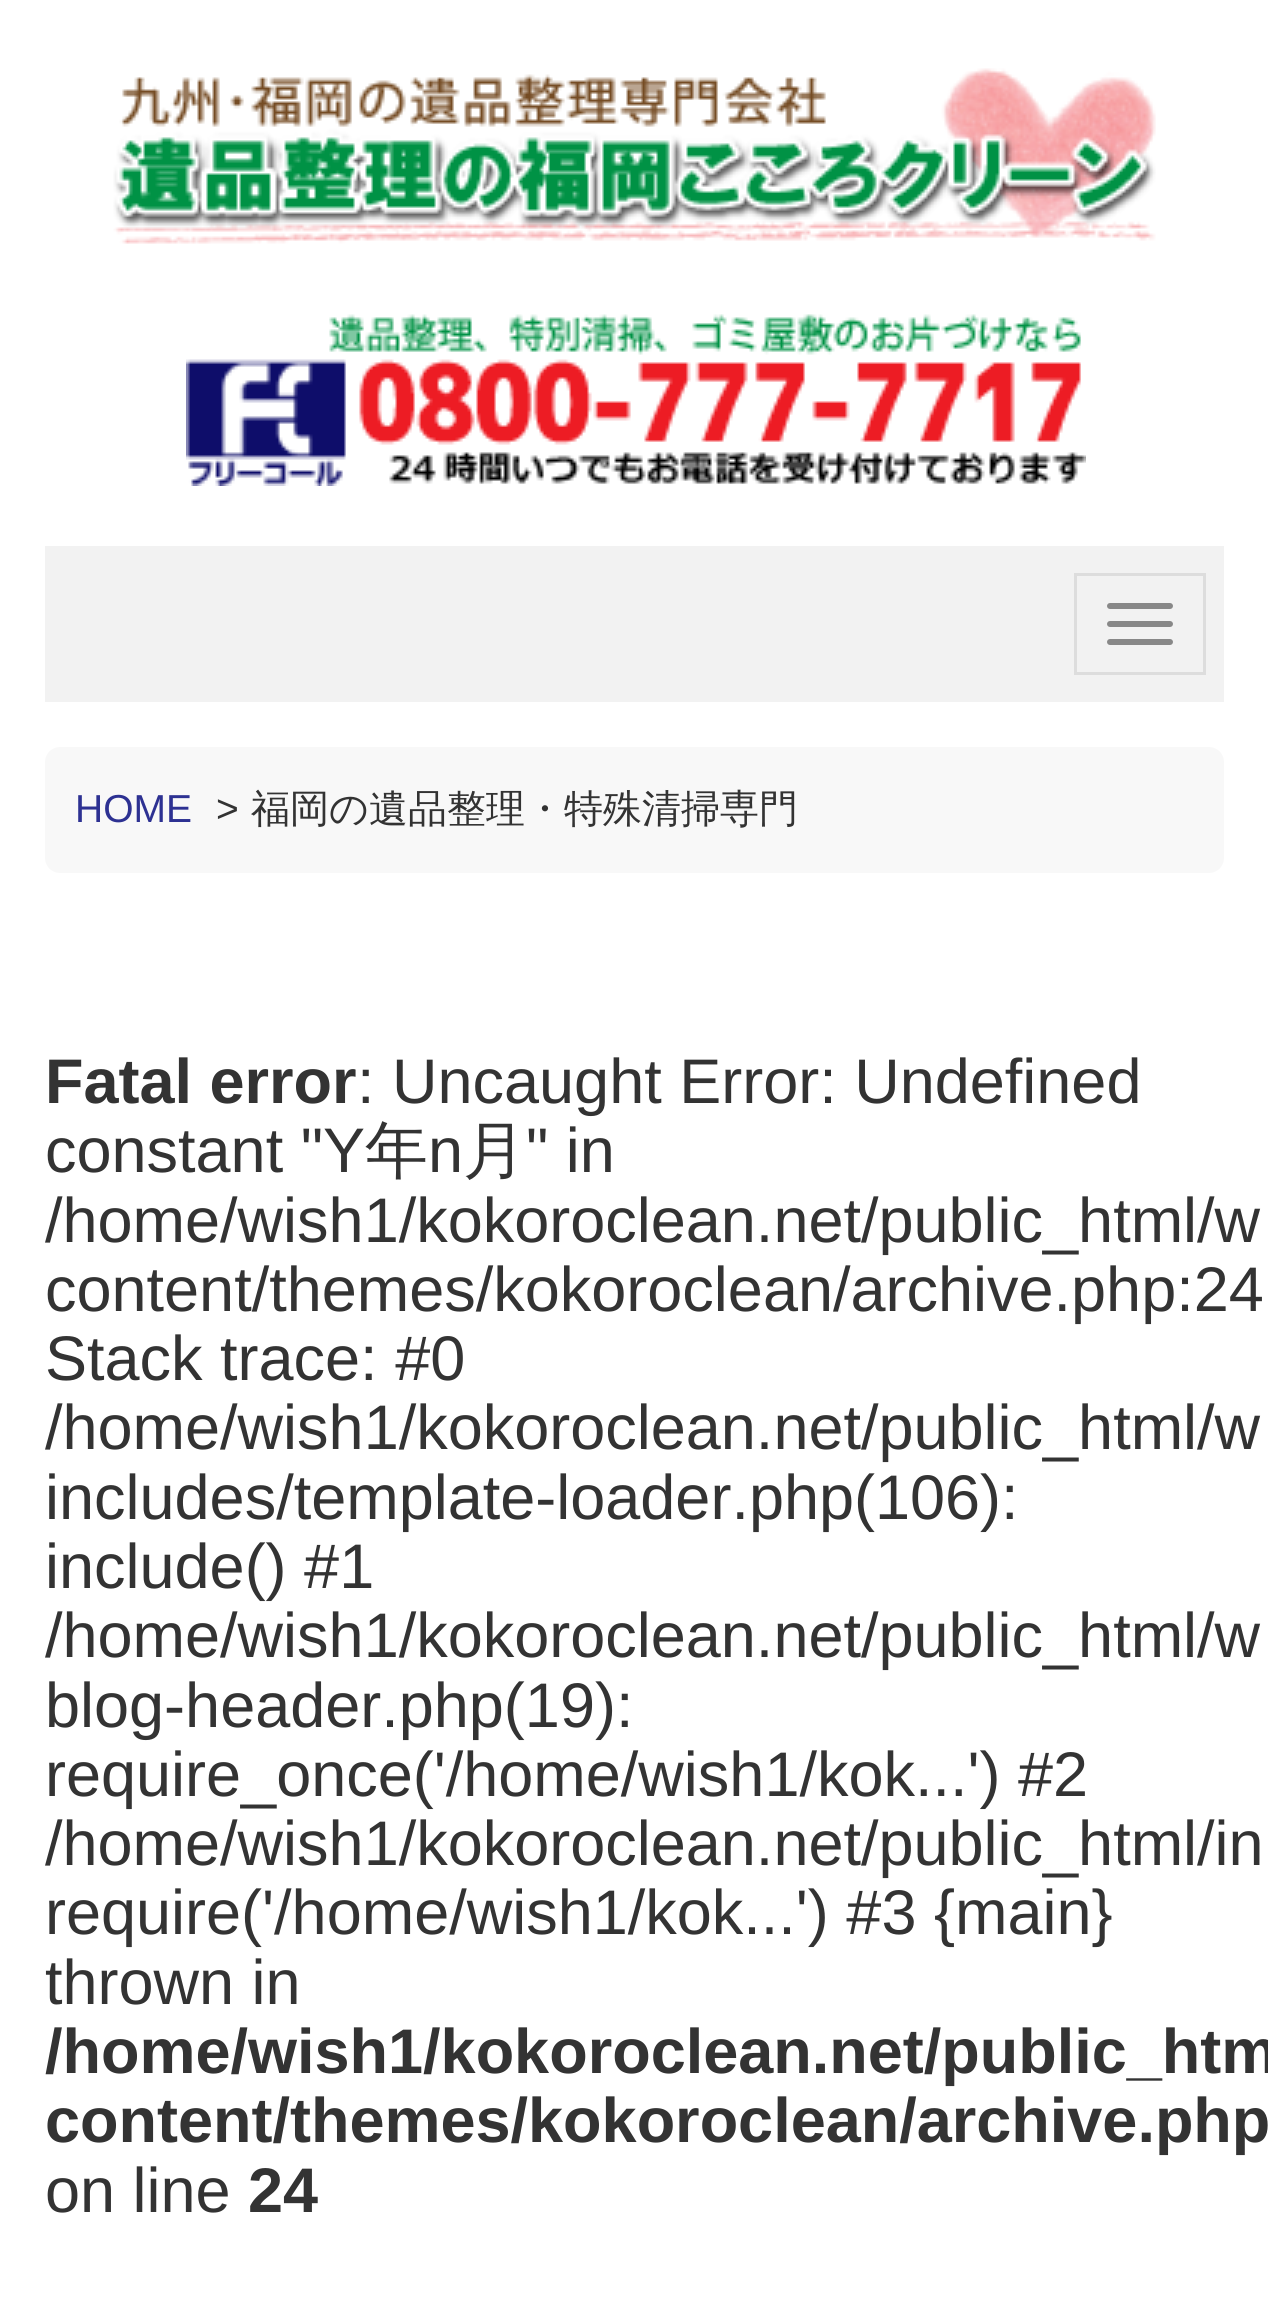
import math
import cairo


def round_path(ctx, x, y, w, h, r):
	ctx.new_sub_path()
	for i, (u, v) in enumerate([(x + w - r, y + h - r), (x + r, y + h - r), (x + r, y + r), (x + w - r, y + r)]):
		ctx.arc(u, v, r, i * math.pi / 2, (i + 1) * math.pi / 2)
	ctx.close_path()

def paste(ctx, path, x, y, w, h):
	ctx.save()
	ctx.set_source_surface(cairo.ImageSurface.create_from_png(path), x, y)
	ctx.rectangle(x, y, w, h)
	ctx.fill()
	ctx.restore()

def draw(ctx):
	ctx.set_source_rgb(1, 1, 1)
	ctx.paint()
	paste(ctx, 'media/1.png', 113, 68, 1043, 176)
	paste(ctx, 'media/2.png', 186, 314, 900, 172)
	ctx.set_source_rgb(0.949, 0.949, 0.949)
	ctx.rectangle(45, 546, 1179, 156)
	ctx.fill()
	ctx.rectangle(1075.5, 574.5, 129, 99)
	ctx.set_source_rgb(0.867, 0.867, 0.867)
	ctx.set_line_width(3)
	ctx.stroke()
	ctx.set_source_rgb(0.533, 0.533, 0.533)
	round_path(ctx, 1107, 603, 66, 6, 3)
	ctx.fill()
	round_path(ctx, 1107, 621, 66, 6, 3)
	ctx.fill()
	round_path(ctx, 1107, 639, 66, 6, 3)
	ctx.fill()
	ctx.set_source_rgb(0.969, 0.969, 0.969)
	round_path(ctx, 45, 747, 1179, 126, 15)
	ctx.fill()
	ctx.select_font_face('Liberation Sans')
	ctx.set_font_size(39)
	ctx.set_source_rgb(0.176, 0.192, 0.573)
	ctx.move_to(75, 822)
	ctx.show_text('HOME')
	ctx.set_source_rgb(0.2, 0.2, 0.2)
	ctx.move_to(216, 822)
	ctx.show_text('>')
	ctx.select_font_face('WenQuanYi Zen Hei Medium')
	ctx.move_to(251, 822)
	ctx.show_text('福岡の遺品整理・特殊清掃専門')
	ctx.select_font_face('Liberation Sans', cairo.FONT_SLANT_NORMAL, cairo.FONT_WEIGHT_BOLD)
	ctx.set_font_size(63)
	ctx.move_to(45, 1103)
	ctx.show_text('Fatal error')
	ctx.select_font_face('Liberation Sans')
	ctx.move_to(357, 1103)
	ctx.show_text(': Uncaught Error: Undefined')
	ctx.move_to(45, 1172)
	ctx.show_text('constant "Y')
	ctx.select_font_face('WenQuanYi Zen Hei Medium')
	ctx.move_to(365, 1172)
	ctx.show_text('年')
	ctx.select_font_face('Liberation Sans')
	ctx.move_to(428, 1172)
	ctx.show_text('n')
	ctx.select_font_face('WenQuanYi Zen Hei Medium')
	ctx.move_to(463, 1172)
	ctx.show_text('月')
	ctx.select_font_face('Liberation Sans')
	for x, y, s in [
		(526, 1172, '" in'),
		(45, 1242, '/home/wish1/kokoroclean.net/public_html/w'),
		(45, 1311, 'content/themes/kokoroclean/archive.php:24'),
		(45, 1380, 'Stack trace: #0'),
		(45, 1449, '/home/wish1/kokoroclean.net/public_html/w'),
		(45, 1519, 'includes/template-loader.php(106):'),
		(45, 1588, 'include() #1'),
		(45, 1657, '/home/wish1/kokoroclean.net/public_html/w'),
		(45, 1727, 'blog-header.php(19):'),
		(45, 1796, 'require_once(\'/home/wish1/kok...\') #2'),
		(45, 1865, '/home/wish1/kokoroclean.net/public_html/in'),
		(45, 1934, 'require(\'/home/wish1/kok...\') #3 {main}'),
		(45, 2004, 'thrown in'),
	]:
		ctx.move_to(x, y)
		ctx.show_text(s)
	ctx.select_font_face('Liberation Sans', cairo.FONT_SLANT_NORMAL, cairo.FONT_WEIGHT_BOLD)
	ctx.move_to(45, 2073)
	ctx.show_text('/home/wish1/kokoroclean.net/public_htm')
	ctx.move_to(45, 2142)
	ctx.show_text('content/themes/kokoroclean/archive.php')
	ctx.select_font_face('Liberation Sans')
	ctx.move_to(45, 2212)
	ctx.show_text('on line')
	ctx.select_font_face('Liberation Sans', cairo.FONT_SLANT_NORMAL, cairo.FONT_WEIGHT_BOLD)
	ctx.move_to(248, 2212)
	ctx.show_text('24')


surface = cairo.ImageSurface(cairo.FORMAT_RGB24, 1268, 2319)
ctx = cairo.Context(surface)
options = cairo.FontOptions()
options.set_hint_metrics(cairo.HINT_METRICS_OFF)
options.set_hint_style(cairo.HINT_STYLE_NONE)
ctx.set_font_options(options)
ctx.set_miter_limit(4)
draw(ctx)
surface.write_to_png('image.png')
